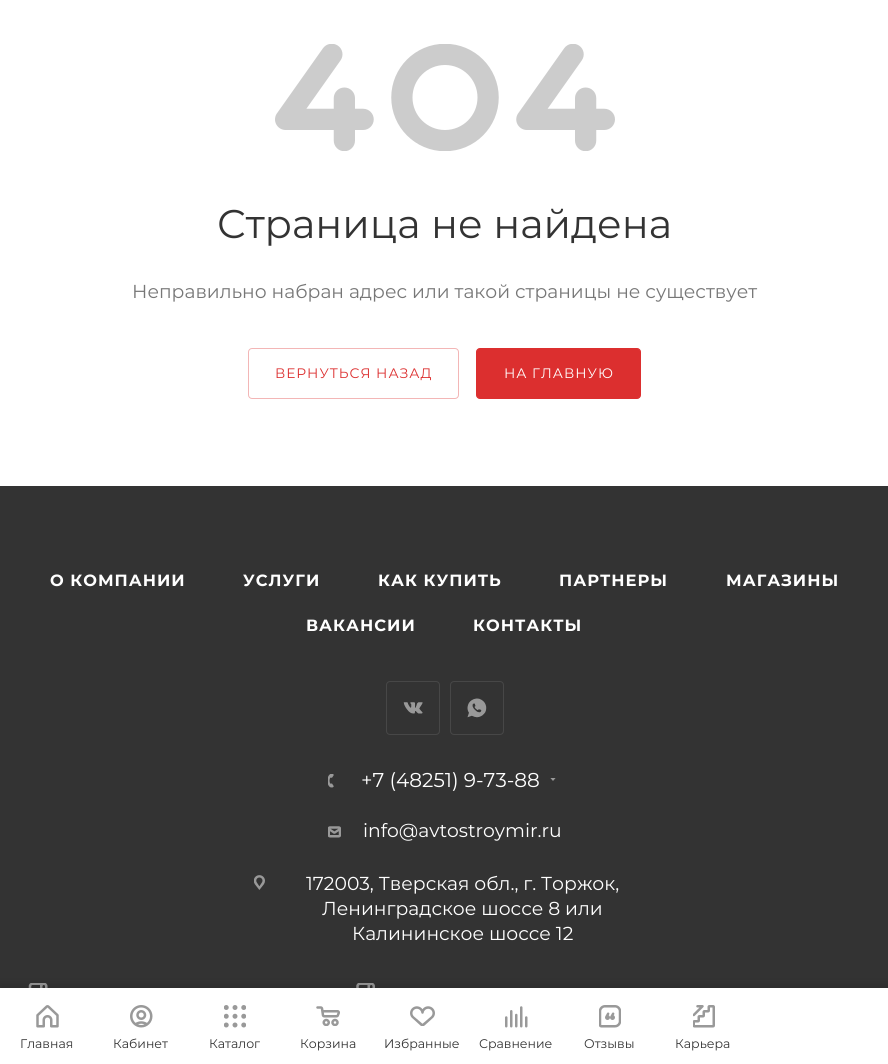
import math
import cairo


def write_spaced(ctx, x, y, s, letter, word):
	ctx.move_to(x, y)
	for ch in s:
		ctx.show_text(ch)
		ctx.rel_move_to(letter + word * (ch == ' '), 0)

def round_path(ctx, x, y, w, h, r):
	ctx.new_sub_path()
	for i, (u, v) in enumerate([(x + w - r, y + h - r), (x + r, y + h - r), (x + r, y + r), (x + w - r, y + r)]):
		ctx.arc(u, v, r, i * math.pi / 2, (i + 1) * math.pi / 2)
	ctx.close_path()

def blur_box(ctx, x, y, w, h, r, blur, alpha):
	ctx.push_group_with_content(cairo.CONTENT_ALPHA)
	ctx.set_operator(cairo.OPERATOR_SOURCE)
	for i in range(15, -16, -2):
		e = blur * i / 6
		if min(w, h) + 2 * e > 0:
			ctx.set_source_rgba(0, 0, 0, alpha * math.erfc((i - 1) / 8.5) / 2)
			round_path(ctx, x - e, y - e, w + 2 * e, h + 2 * e, max(0, min(r + e + blur * .6, min(w, h) / 2 + e)))
			ctx.fill()
	ctx.mask(ctx.pop_group())

def paste(ctx, path, x, y, w, h):
	ctx.save()
	ctx.set_source_surface(cairo.ImageSurface.create_from_png(path), x, y)
	ctx.rectangle(x, y, w, h)
	ctx.fill()
	ctx.restore()

def draw(ctx):
	ctx.set_source_rgb(1, 1, 1)
	ctx.paint()
	paste(ctx, 'media/1.png', 275, 44, 340, 107)
	ctx.select_font_face('Montserrat')
	ctx.set_font_size(40)
	ctx.set_source_rgb(0.2, 0.2, 0.2)
	ctx.move_to(217, 238)
	ctx.show_text('Страница не найдена')
	ctx.set_font_size(18.75)
	ctx.set_source_rgb(0.467, 0.467, 0.467)
	ctx.move_to(132, 298)
	ctx.show_text('Неправильно набран адрес или такой страницы не существует')
	round_path(ctx, 248.5, 348.5, 210, 50, 3.5)
	ctx.set_source_rgb(0.953, 0.714, 0.714)
	ctx.set_line_width(1)
	ctx.stroke()
	ctx.set_font_size(13.75)
	ctx.set_source_rgb(0.863, 0.184, 0.184)
	write_spaced(ctx, 275, 378, 'ВЕРНУТЬСЯ НАЗАД', 1, 0)
	round_path(ctx, 476.5, 348.5, 164, 50, 3.5)
	ctx.fill_preserve()
	ctx.stroke()
	ctx.set_source_rgb(1, 1, 1)
	write_spaced(ctx, 504, 378, 'НА ГЛАВНУЮ', 1, 0)
	ctx.set_source_rgb(0.2, 0.2, 0.2)
	ctx.rectangle(0, 486, 888, 502)
	ctx.fill()
	ctx.select_font_face('Montserrat', cairo.FONT_SLANT_NORMAL, cairo.FONT_WEIGHT_BOLD)
	ctx.set_font_size(16.25)
	ctx.set_source_rgb(1, 1, 1)
	for x, y, s in [
		(50, 586, 'О КОМПАНИИ'),
		(243, 586, 'УСЛУГИ'),
		(378, 586, 'КАК КУПИТЬ'),
		(559, 586, 'ПАРТНЕРЫ'),
		(726, 586, 'МАГАЗИНЫ'),
		(306, 631, 'ВАКАНСИИ'),
		(473, 631, 'КОНТАКТЫ'),
	]:
		write_spaced(ctx, x, y, s, 1, 0)
	paste(ctx, 'media/2.png', 403, 702, 20, 12)
	round_path(ctx, 386.5, 681.5, 53, 53, 3.5)
	ctx.set_source_rgb(0.278, 0.278, 0.278)
	ctx.stroke()
	paste(ctx, 'media/3.png', 467, 698, 20, 20)
	round_path(ctx, 450.5, 681.5, 53, 53, 3.5)
	ctx.stroke()
	paste(ctx, 'media/4.png', 328, 774, 6, 14)
	ctx.select_font_face('Montserrat')
	ctx.set_font_size(20)
	ctx.set_source_rgb(1, 1, 1)
	ctx.move_to(361, 787)
	ctx.show_text('+7 (48251) 9-73-88')
	ctx.save()
	ctx.rectangle(550, 778, 6, 4)
	ctx.clip()
	ctx.set_source_rgb(0.6, 0.6, 0.6)
	ctx.set_fill_rule(cairo.FILL_RULE_EVEN_ODD)
	ctx.new_path()
	ctx.move_to(550, 777.5)
	ctx.line_to(556, 777.5)
	ctx.line_to(553, 781)
	ctx.close_path()
	ctx.fill()
	ctx.restore()
	paste(ctx, 'media/5.png', 328, 826, 13, 12)
	ctx.set_font_size(18.75)
	ctx.move_to(363, 837)
	ctx.show_text('info@avtostroymir.ru')
	paste(ctx, 'media/6.png', 254, 875, 11, 15)
	for x, y, s in [
		(306, 890, '172003, Тверская обл., г. Торжок,'),
		(322, 915, 'Ленинградское шоссе 8 или'),
		(352, 940, 'Калининское шоссе 12'),
	]:
		ctx.move_to(x, y)
		ctx.show_text(s)
	paste(ctx, 'media/7.png', 28, 983, 20, 5)
	paste(ctx, 'media/8.png', 356, 983, 19, 5)
	ctx.set_source_rgb(0, 0, 0)
	blur_box(ctx, 0, 985, 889, 78, 0, 5, 0.15)
	ctx.set_source_rgb(1, 1, 1)
	ctx.rectangle(0, 988, 888, 76)
	ctx.fill()
	paste(ctx, 'media/9.png', 36, 1005, 23, 23)
	ctx.set_font_size(12.5)
	ctx.set_source_rgb(0.2, 0.2, 0.2)
	ctx.move_to(20, 1048)
	ctx.show_text('Главная')
	paste(ctx, 'media/10.png', 130, 1005, 23, 23)
	ctx.move_to(113, 1048)
	ctx.show_text('Кабинет')
	paste(ctx, 'media/11.png', 224, 1005, 22, 23)
	ctx.move_to(209, 1048)
	ctx.show_text('Каталог')
	paste(ctx, 'media/12.png', 316, 1006, 24, 20)
	ctx.move_to(300, 1048)
	ctx.show_text('Корзина')
	paste(ctx, 'media/13.png', 410, 1006, 25, 20)
	ctx.move_to(384, 1048)
	ctx.show_text('Избранные')
	paste(ctx, 'media/14.png', 505, 1006, 23, 22)
	ctx.move_to(479, 1048)
	ctx.show_text('Сравнение')
	paste(ctx, 'media/15.png', 599, 1005, 22, 23)
	ctx.move_to(584, 1048)
	ctx.show_text('Отзывы')
	paste(ctx, 'media/16.png', 693, 1005, 22, 23)
	ctx.move_to(675, 1048)
	ctx.show_text('Карьера')


surface = cairo.ImageSurface(cairo.FORMAT_RGB24, 888, 1064)
ctx = cairo.Context(surface)
options = cairo.FontOptions()
options.set_hint_metrics(cairo.HINT_METRICS_OFF)
options.set_hint_style(cairo.HINT_STYLE_NONE)
ctx.set_font_options(options)
ctx.set_miter_limit(4)
draw(ctx)
surface.write_to_png('image.png')
